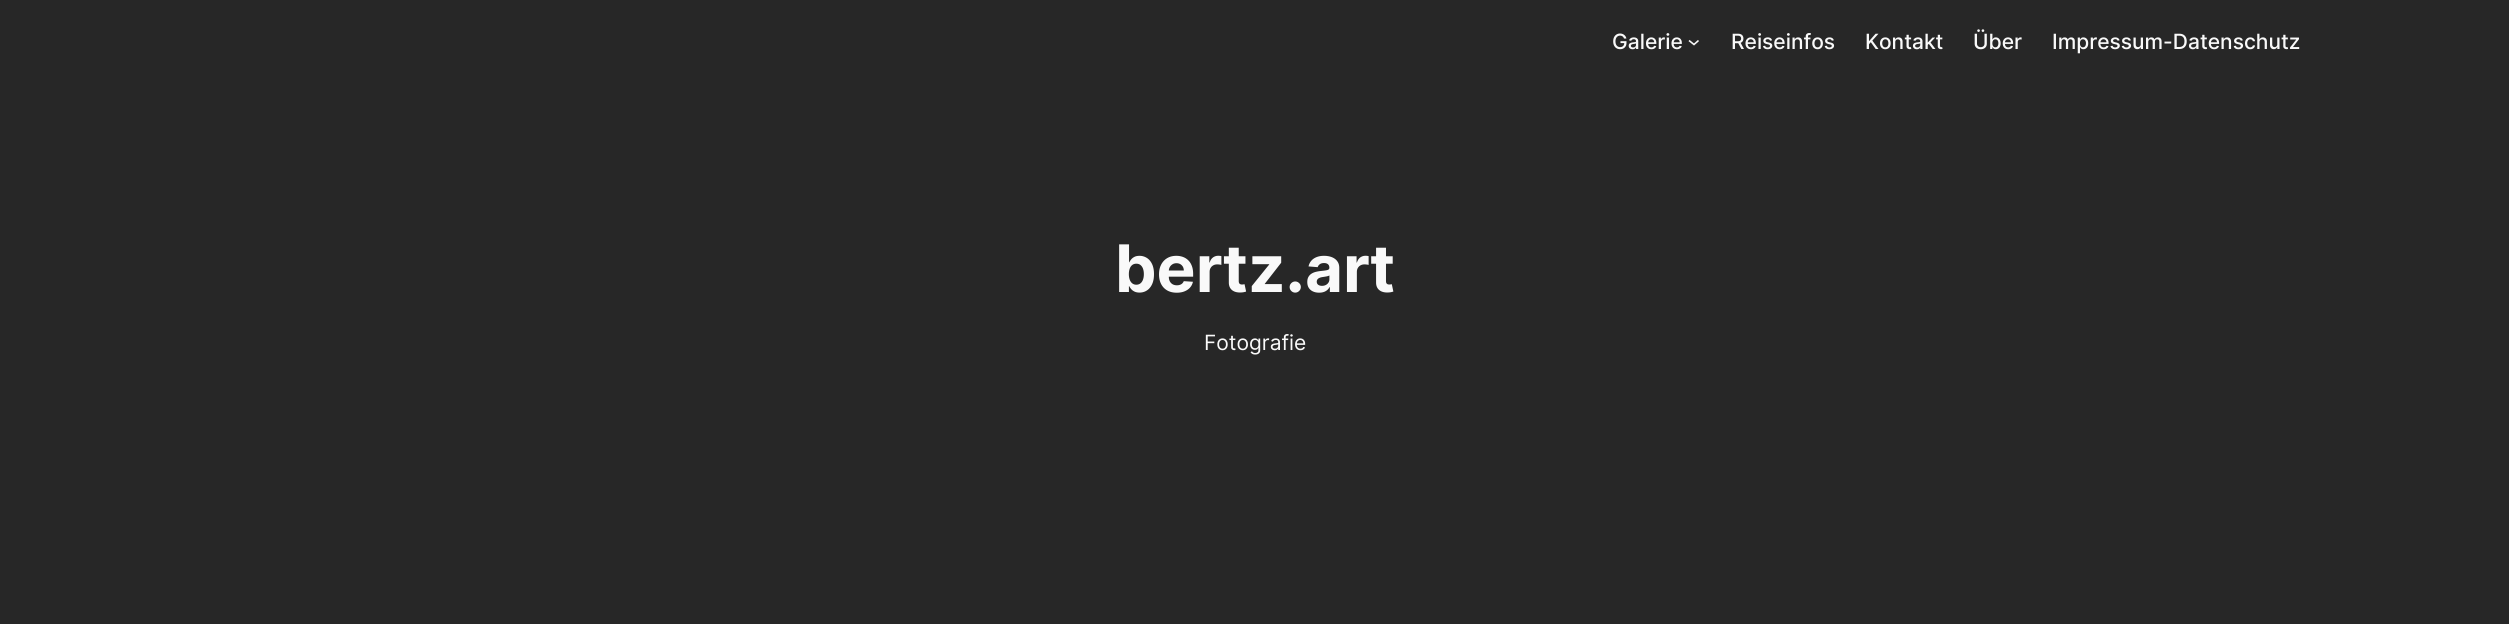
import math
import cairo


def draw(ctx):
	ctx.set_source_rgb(0.153, 0.153, 0.153)
	ctx.paint()
	ctx.select_font_face('Inter Medium')
	ctx.set_font_size(21)
	ctx.set_source_rgb(0.976, 0.976, 0.976)
	ctx.move_to(1612, 49)
	ctx.show_text('Galerie')
	ctx.new_path()
	ctx.move_to(1689, 40.5)
	ctx.line_to(1694, 44.5)
	ctx.line_to(1698.5, 40.5)
	ctx.set_line_width(1.6)
	ctx.stroke()
	for x, y, s in [
		(1731, 49, 'Reiseinfos'),
		(1865, 49, 'Kontakt'),
		(1973, 49, 'Über'),
		(2052, 49, 'Impressum-Datenschutz'),
	]:
		ctx.move_to(x, y)
		ctx.show_text(s)
	ctx.select_font_face('Inter', cairo.FONT_SLANT_NORMAL, cairo.FONT_WEIGHT_BOLD)
	ctx.set_font_size(65.5)
	ctx.move_to(1115, 292)
	ctx.show_text('bertz.art')
	ctx.select_font_face('Inter')
	ctx.set_font_size(21)
	ctx.move_to(1204, 350)
	ctx.show_text('Fotografie')


surface = cairo.ImageSurface(cairo.FORMAT_RGB24, 2509, 624)
ctx = cairo.Context(surface)
options = cairo.FontOptions()
options.set_hint_metrics(cairo.HINT_METRICS_OFF)
options.set_hint_style(cairo.HINT_STYLE_NONE)
ctx.set_font_options(options)
ctx.set_miter_limit(4)
draw(ctx)
surface.write_to_png('image.png')
